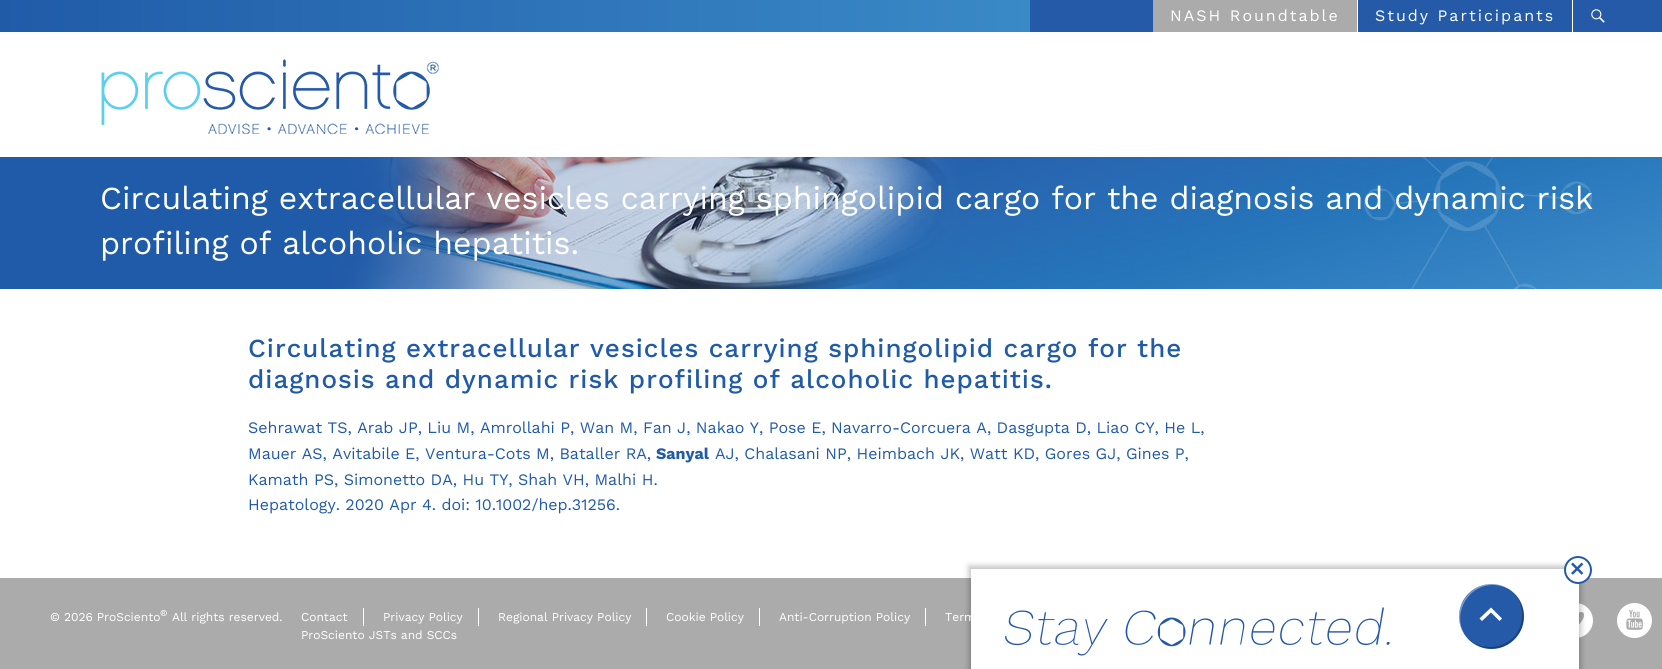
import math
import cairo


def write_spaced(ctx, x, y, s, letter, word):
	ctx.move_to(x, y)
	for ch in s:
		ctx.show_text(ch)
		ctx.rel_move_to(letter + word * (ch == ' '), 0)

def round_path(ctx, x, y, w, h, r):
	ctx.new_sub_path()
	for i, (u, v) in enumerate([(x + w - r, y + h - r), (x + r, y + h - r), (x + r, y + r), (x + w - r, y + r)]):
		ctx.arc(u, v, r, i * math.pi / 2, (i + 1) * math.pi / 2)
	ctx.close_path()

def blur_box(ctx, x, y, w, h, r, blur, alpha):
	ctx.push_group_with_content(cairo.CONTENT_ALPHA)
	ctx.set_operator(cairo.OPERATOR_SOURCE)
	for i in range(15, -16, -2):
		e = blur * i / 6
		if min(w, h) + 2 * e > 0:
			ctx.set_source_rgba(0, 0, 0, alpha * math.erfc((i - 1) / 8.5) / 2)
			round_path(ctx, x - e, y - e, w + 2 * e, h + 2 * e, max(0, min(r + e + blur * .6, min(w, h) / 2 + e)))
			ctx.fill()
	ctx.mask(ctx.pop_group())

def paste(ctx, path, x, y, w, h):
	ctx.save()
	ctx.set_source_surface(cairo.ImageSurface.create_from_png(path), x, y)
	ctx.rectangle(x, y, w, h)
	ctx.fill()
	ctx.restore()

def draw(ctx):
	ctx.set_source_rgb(1, 1, 1)
	ctx.paint()
	ctx.set_source_rgb(0.145, 0.353, 0.659)
	ctx.rectangle(1030, 0, 632, 32)
	ctx.fill()
	gradient = cairo.LinearGradient(0, 16, 1030, 16)
	gradient.add_color_stop_rgba(0, 0.125, 0.357, 0.659, 1)
	gradient.add_color_stop_rgba(1, 0.227, 0.541, 0.78, 1)
	ctx.set_source(gradient)
	ctx.rectangle(0, 0, 1030, 32)
	ctx.fill()
	ctx.set_source_rgb(0.671, 0.671, 0.671)
	ctx.rectangle(1153, 0, 204, 32)
	ctx.fill()
	ctx.set_source_rgb(1, 1, 1)
	ctx.rectangle(1357, 0, 1, 32)
	ctx.fill()
	ctx.select_font_face('Work Sans')
	ctx.set_font_size(16)
	write_spaced(ctx, 1170, 21, 'NASH Roundtable', 2, 0)
	ctx.rectangle(1572, 0, 1, 32)
	ctx.fill()
	write_spaced(ctx, 1375, 21, 'Study Participants', 2, 0)
	paste(ctx, 'media/1.png', 1591, 9, 14, 14)
	paste(ctx, 'media/2.png', 101, 59, 338, 75)
	paste(ctx, 'media/3.png', 0, 157, 1662, 132)
	ctx.set_font_size(32)
	ctx.move_to(100, 209)
	ctx.show_text('Circulating extracellular vesicles carrying sphingolipid cargo for the diagnosis and dynamic risk')
	ctx.move_to(100, 254)
	ctx.show_text('profiling of alcoholic hepatitis.')
	ctx.select_font_face('Work Sans Medium')
	ctx.set_font_size(26)
	ctx.set_source_rgb(0.125, 0.357, 0.659)
	write_spaced(ctx, 248, 357, 'Circulating extracellular vesicles carrying sphingolipid cargo for the', 1, 0)
	write_spaced(ctx, 248, 388, 'diagnosis and dynamic risk profiling of alcoholic hepatitis.', 1, 0)
	ctx.select_font_face('Work Sans')
	ctx.set_font_size(16)
	ctx.move_to(248, 433)
	ctx.show_text('Sehrawat TS, Arab JP, Liu M, Amrollahi P, Wan M, Fan J, Nakao Y, Pose E, Navarro-Corcuera A, Dasgupta D, Liao CY, He L,')
	ctx.move_to(248, 459)
	ctx.show_text('Mauer AS, Avitabile E, Ventura-Cots M, Bataller RA,')
	ctx.select_font_face('Work Sans', cairo.FONT_SLANT_NORMAL, cairo.FONT_WEIGHT_BOLD)
	ctx.move_to(656, 459)
	ctx.show_text('Sanyal')
	ctx.select_font_face('Work Sans')
	for x, y, s in [
		(715, 459, 'AJ, Chalasani NP, Heimbach JK, Watt KD, Gores GJ, Gines P,'),
		(248, 485, 'Kamath PS, Simonetto DA, Hu TY, Shah VH, Malhi H.'),
		(248, 510, 'Hepatology. 2020 Apr 4. doi: 10.1002/hep.31256.'),
	]:
		ctx.move_to(x, y)
		ctx.show_text(s)
	ctx.set_source_rgb(0.671, 0.671, 0.671)
	ctx.rectangle(0, 578, 1662, 91)
	ctx.fill()
	ctx.set_source_rgb(1, 1, 1)
	ctx.arc(1575.5, 620.5, 17.5, 0, 2 * math.pi)
	ctx.fill()
	paste(ctx, 'media/6.png', 1579, 612, 5, 13)
	ctx.set_source_rgb(0, 0, 0)
	blur_box(ctx, 969, 566, 612, 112, 0, 3, 0.25)
	ctx.set_source_rgb(1, 1, 1)
	ctx.rectangle(971, 569, 608, 100)
	ctx.fill()
	ctx.arc(1578, 570, 13, 0, 2 * math.pi)
	ctx.fill_preserve()
	ctx.set_source_rgb(0.145, 0.353, 0.659)
	ctx.stroke()
	paste(ctx, 'media/4.png', 1571, 562, 13, 13)
	paste(ctx, 'media/5.png', 1005, 607, 385, 49)
	ctx.arc(1491.5, 616.5, 32.5, 0, 2 * math.pi)
	ctx.fill()
	ctx.set_source_rgba(0, 0, 0, 0.3)
	ctx.new_path()
	ctx.move_to(1465, 635)
	ctx.curve_to(1476, 651, 1500, 654, 1514, 639)
	ctx.curve_to(1527, 627, 1527, 605, 1514, 593)
	ctx.curve_to(1525, 605, 1525, 626, 1513, 638)
	ctx.curve_to(1499, 651, 1476, 650, 1465, 635)
	ctx.close_path()
	ctx.fill()
	ctx.set_source_rgba(1, 1, 1, 0.4)
	ctx.new_path()
	ctx.move_to(1493, 585)
	ctx.curve_to(1499, 585, 1505, 587, 1511, 590)
	ctx.curve_to(1479, 567, 1441, 611, 1468, 639)
	ctx.curve_to(1450, 619, 1465, 585, 1493, 585)
	ctx.close_path()
	ctx.fill()
	ctx.set_source_rgb(1, 1, 1)
	ctx.new_path()
	ctx.move_to(1479.5, 618.5)
	ctx.line_to(1491, 607.5)
	ctx.line_to(1502, 618.5)
	ctx.line_to(1499.5, 621)
	ctx.line_to(1491, 612.5)
	ctx.line_to(1482, 621)
	ctx.close_path()
	ctx.fill()
	ctx.set_font_size(12)
	ctx.move_to(50, 621)
	ctx.show_text('© 2026 ProSciento')
	ctx.set_font_size(9)
	ctx.move_to(160, 616)
	ctx.show_text('®')
	ctx.set_font_size(12)
	ctx.move_to(172, 621)
	ctx.show_text('All rights reserved.')
	ctx.rectangle(363, 608, 1, 18)
	ctx.fill()
	ctx.move_to(301, 621)
	ctx.show_text('Contact')
	ctx.rectangle(478, 608, 1, 18)
	ctx.fill()
	ctx.move_to(383, 621)
	ctx.show_text('Privacy Policy')
	ctx.rectangle(646, 608, 1, 18)
	ctx.fill()
	ctx.move_to(498, 621)
	ctx.show_text('Regional Privacy Policy')
	ctx.rectangle(759, 608, 1, 18)
	ctx.fill()
	ctx.move_to(666, 621)
	ctx.show_text('Cookie Policy')
	ctx.rectangle(925, 608, 1, 18)
	ctx.fill()
	for x, y, s in [
		(779, 621, 'Anti-Corruption Policy'),
		(945, 621, 'Term'),
		(301, 639, 'ProSciento JSTs and SCCs'),
	]:
		ctx.move_to(x, y)
		ctx.show_text(s)
	ctx.new_path()
	ctx.arc(1634.5, 620.5, 17.5, 0, 2 * math.pi)
	ctx.fill()
	paste(ctx, 'media/7.png', 1626, 609, 17, 21)


surface = cairo.ImageSurface(cairo.FORMAT_RGB24, 1662, 669)
ctx = cairo.Context(surface)
options = cairo.FontOptions()
options.set_hint_metrics(cairo.HINT_METRICS_OFF)
options.set_hint_style(cairo.HINT_STYLE_NONE)
ctx.set_font_options(options)
ctx.set_miter_limit(4)
draw(ctx)
surface.write_to_png('image.png')
